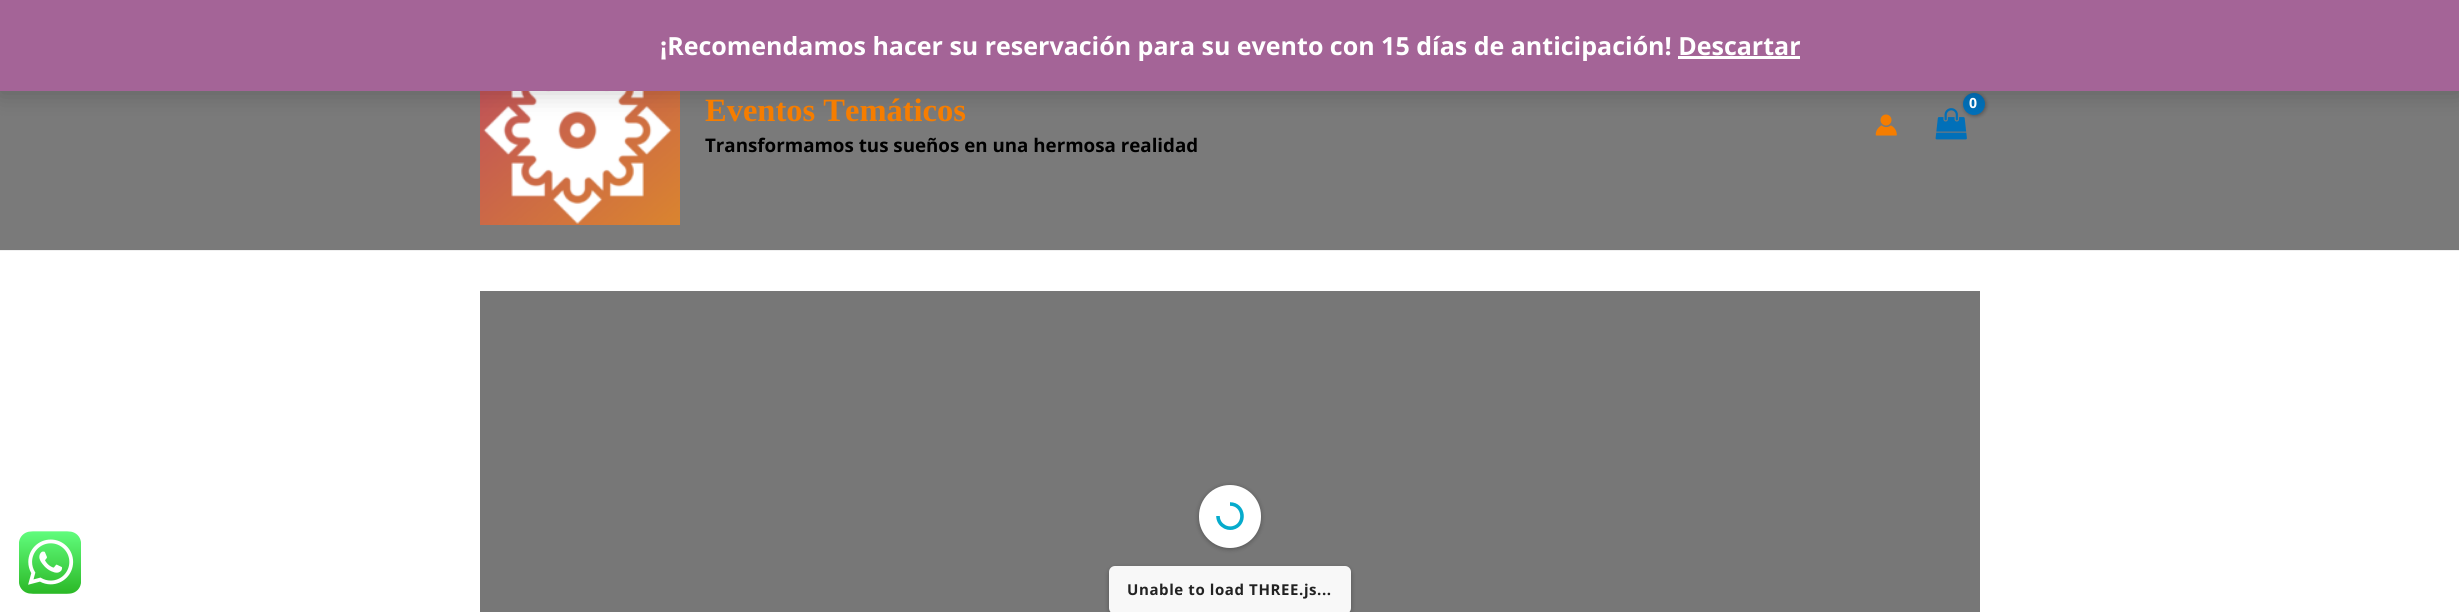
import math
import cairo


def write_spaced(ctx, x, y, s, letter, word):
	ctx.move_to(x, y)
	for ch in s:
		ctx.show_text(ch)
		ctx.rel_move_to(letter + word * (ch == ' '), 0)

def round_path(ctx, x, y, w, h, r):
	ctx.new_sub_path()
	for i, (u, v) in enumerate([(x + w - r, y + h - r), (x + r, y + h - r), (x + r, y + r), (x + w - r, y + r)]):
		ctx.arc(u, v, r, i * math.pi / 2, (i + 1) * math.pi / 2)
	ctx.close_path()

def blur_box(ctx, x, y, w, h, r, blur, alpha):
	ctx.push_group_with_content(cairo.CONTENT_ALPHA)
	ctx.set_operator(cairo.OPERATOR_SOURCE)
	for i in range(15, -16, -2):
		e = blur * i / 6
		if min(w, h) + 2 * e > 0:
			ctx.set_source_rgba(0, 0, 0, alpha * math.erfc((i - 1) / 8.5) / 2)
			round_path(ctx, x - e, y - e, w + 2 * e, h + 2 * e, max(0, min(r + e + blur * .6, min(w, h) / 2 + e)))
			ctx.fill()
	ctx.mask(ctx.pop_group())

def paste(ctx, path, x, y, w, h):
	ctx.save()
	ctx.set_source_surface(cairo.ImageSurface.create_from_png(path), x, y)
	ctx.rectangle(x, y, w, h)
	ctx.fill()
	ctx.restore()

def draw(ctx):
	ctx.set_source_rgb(1, 1, 1)
	ctx.paint()
	ctx.set_source_rgb(0.478, 0.478, 0.478)
	ctx.rectangle(0, 91, 2459, 159)
	ctx.fill()
	paste(ctx, 'media/2.png', 480, 91, 200, 134)
	paste(ctx, 'media/3.png', 1935, 108, 32, 32)
	ctx.set_source_rgb(0, 0, 0)
	blur_box(ctx, 1964, 94, 22, 22, 11, 2, 0.3)
	ctx.set_source_rgb(0.004, 0.439, 0.725)
	ctx.arc(1974, 104, 11, 0, 2 * math.pi)
	ctx.fill()
	paste(ctx, 'media/4.png', 1875, 114, 22, 22)
	ctx.set_source_rgb(0, 0, 0)
	blur_box(ctx, 0, 1, 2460, 92, 0, 12.5, 0.2)
	ctx.set_source_rgb(0.643, 0.392, 0.592)
	ctx.rectangle(0, 0, 2459, 91)
	ctx.fill()
	ctx.select_font_face('Open Sans', cairo.FONT_SLANT_NORMAL, cairo.FONT_WEIGHT_BOLD)
	ctx.set_font_size(25)
	ctx.set_source_rgb(1, 1, 1)
	ctx.move_to(660, 55)
	ctx.show_text('¡Recomendamos hacer su reservación para su evento con 15 días de anticipación! Descartar')
	ctx.rectangle(1678, 56, 122, 3)
	ctx.fill()
	paste(ctx, 'media/1.png', 19, 531, 62, 63)
	ctx.set_source_rgb(0.941, 0.941, 0.941)
	ctx.rectangle(0, 250, 2459, 1)
	ctx.fill()
	ctx.select_font_face('Liberation Serif', cairo.FONT_SLANT_NORMAL, cairo.FONT_WEIGHT_BOLD)
	ctx.set_font_size(32.5)
	ctx.set_source_rgb(0.961, 0.49, 0)
	ctx.move_to(705, 121)
	ctx.show_text('Eventos Temáticos')
	ctx.select_font_face('Open Sans', cairo.FONT_SLANT_NORMAL, cairo.FONT_WEIGHT_BOLD)
	ctx.set_font_size(18.75)
	ctx.set_source_rgb(0, 0, 0)
	ctx.move_to(705, 152)
	ctx.show_text('Transformamos tus sueños en una hermosa realidad')
	ctx.set_font_size(14)
	ctx.set_source_rgb(1, 1, 1)
	write_spaced(ctx, 1969, 108, '0', -1, 0)
	ctx.set_source_rgb(0.467, 0.467, 0.467)
	ctx.rectangle(480, 291, 1500, 321)
	ctx.fill()
	ctx.set_source_rgb(0, 0, 0)
	blur_box(ctx, 1199, 486, 62, 63, 31, 2.5, 0.3)
	ctx.set_source_rgb(1, 1, 1)
	round_path(ctx, 1199, 485, 62, 63, 31)
	ctx.fill()
	ctx.new_path()
	ctx.move_to(1230, 504)
	ctx.curve_to(1244.5, 504, 1246.5, 525, 1232.5, 528)
	ctx.curve_to(1229.5, 528.5, 1226, 528, 1223.5, 526)
	ctx.curve_to(1220, 524, 1218, 520, 1218, 516)
	ctx.set_source_rgb(0.027, 0.671, 0.8)
	ctx.set_line_width(3.6)
	ctx.stroke()
	ctx.set_source_rgb(0, 0, 0)
	blur_box(ctx, 1109, 568, 242, 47, 6, 2.5, 0.3)
	ctx.set_source_rgb(0.969, 0.969, 0.969)
	round_path(ctx, 1109, 566, 242, 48, 6)
	ctx.fill()
	ctx.set_font_size(15)
	ctx.set_source_rgb(0.133, 0.133, 0.133)
	write_spaced(ctx, 1127, 595, 'Unable to load THREE.js...', 0.6, 0)


surface = cairo.ImageSurface(cairo.FORMAT_RGB24, 2459, 612)
ctx = cairo.Context(surface)
options = cairo.FontOptions()
options.set_hint_metrics(cairo.HINT_METRICS_OFF)
options.set_hint_style(cairo.HINT_STYLE_NONE)
ctx.set_font_options(options)
ctx.set_miter_limit(4)
draw(ctx)
surface.write_to_png('image.png')
